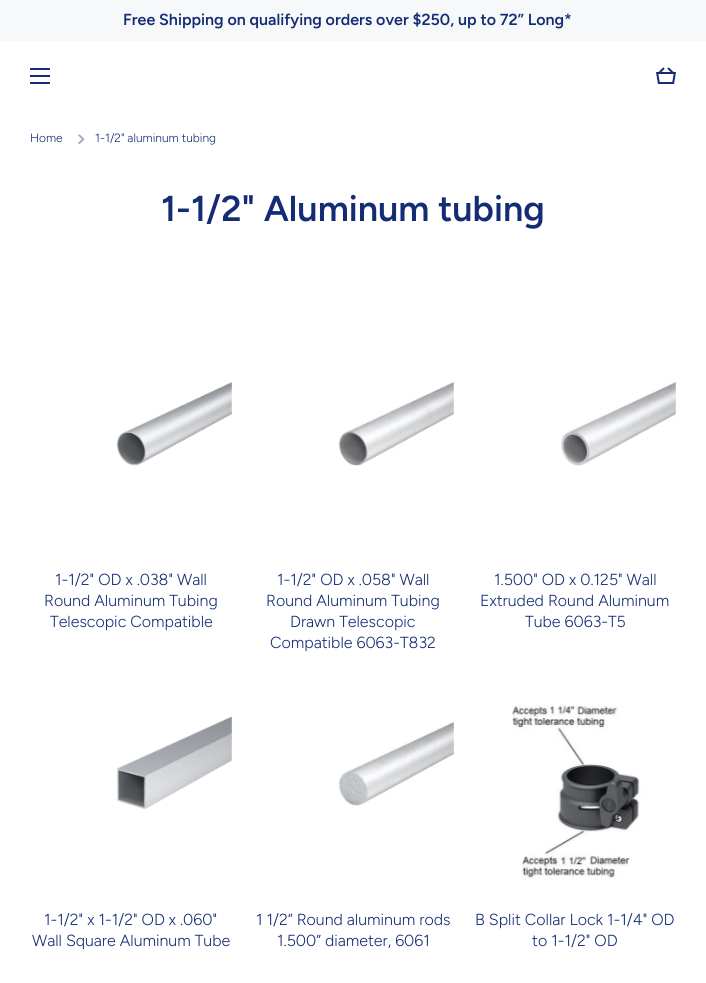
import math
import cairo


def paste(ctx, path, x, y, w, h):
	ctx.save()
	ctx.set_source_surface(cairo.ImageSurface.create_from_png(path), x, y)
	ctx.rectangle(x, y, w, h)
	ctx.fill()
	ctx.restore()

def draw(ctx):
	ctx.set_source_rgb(1, 1, 1)
	ctx.paint()
	ctx.set_source_rgb(0.965, 0.969, 0.98)
	ctx.rectangle(0, 0, 706, 41)
	ctx.fill()
	ctx.select_font_face('Figtree SemiBold')
	ctx.set_font_size(16)
	ctx.set_source_rgb(0.078, 0.173, 0.451)
	ctx.move_to(123, 25)
	ctx.show_text('Free Shipping on qualifying orders over $250, up to 72” Long*')
	ctx.rectangle(30, 68, 20, 2)
	ctx.rectangle(30, 75, 20, 2)
	ctx.rectangle(30, 82, 20, 2)
	ctx.fill()
	paste(ctx, 'media/1.png', 656, 67, 20, 17)
	ctx.select_font_face('Figtree Light')
	ctx.set_font_size(12)
	ctx.move_to(30, 142)
	ctx.show_text('Home')
	paste(ctx, 'media/2.png', 78, 134, 7, 11)
	ctx.move_to(95, 142)
	ctx.show_text('1-1/2" aluminum tubing')
	ctx.select_font_face('Figtree SemiBold')
	ctx.set_font_size(36)
	ctx.move_to(161, 221)
	ctx.show_text('1-1/2" Aluminum tubing')
	paste(ctx, 'media/3.png', 116, 381, 116, 85)
	ctx.select_font_face('Figtree Light')
	ctx.set_font_size(16)
	for x, y, s in [
		(55, 585, '1-1/2" OD x .038" Wall'),
		(44, 606, 'Round Aluminum Tubing'),
		(50, 627, 'Telescopic Compatible'),
	]:
		ctx.move_to(x, y)
		ctx.show_text(s)
	paste(ctx, 'media/4.png', 338, 381, 116, 85)
	for x, y, s in [
		(277, 585, '1-1/2" OD x .058" Wall'),
		(266, 606, 'Round Aluminum Tubing'),
		(290, 627, 'Drawn Telescopic'),
		(270, 648, 'Compatible 6063-T832'),
	]:
		ctx.move_to(x, y)
		ctx.show_text(s)
	paste(ctx, 'media/5.png', 561, 381, 115, 85)
	for x, y, s in [
		(494, 585, '1.500" OD x 0.125" Wall'),
		(480, 606, 'Extruded Round Aluminum'),
		(525, 627, 'Tube 6063-T5'),
	]:
		ctx.move_to(x, y)
		ctx.show_text(s)
	paste(ctx, 'media/6.png', 116, 716, 116, 94)
	ctx.move_to(44, 925)
	ctx.show_text('1-1/2" x 1-1/2" OD x .060"')
	ctx.move_to(32, 946)
	ctx.show_text('Wall Square Aluminum Tube')
	paste(ctx, 'media/7.png', 338, 721, 116, 85)
	ctx.move_to(256, 925)
	ctx.show_text('1 1/2” Round aluminum rods')
	ctx.move_to(277, 946)
	ctx.show_text('1.500” diameter, 6061')
	paste(ctx, 'media/8.png', 511, 705, 130, 174)
	ctx.move_to(475, 925)
	ctx.show_text('B Split Collar Lock 1-1/4" OD')
	ctx.move_to(532, 946)
	ctx.show_text('to 1-1/2" OD')


surface = cairo.ImageSurface(cairo.FORMAT_RGB24, 706, 983)
ctx = cairo.Context(surface)
options = cairo.FontOptions()
options.set_hint_metrics(cairo.HINT_METRICS_OFF)
options.set_hint_style(cairo.HINT_STYLE_NONE)
ctx.set_font_options(options)
ctx.set_miter_limit(4)
draw(ctx)
surface.write_to_png('image.png')
